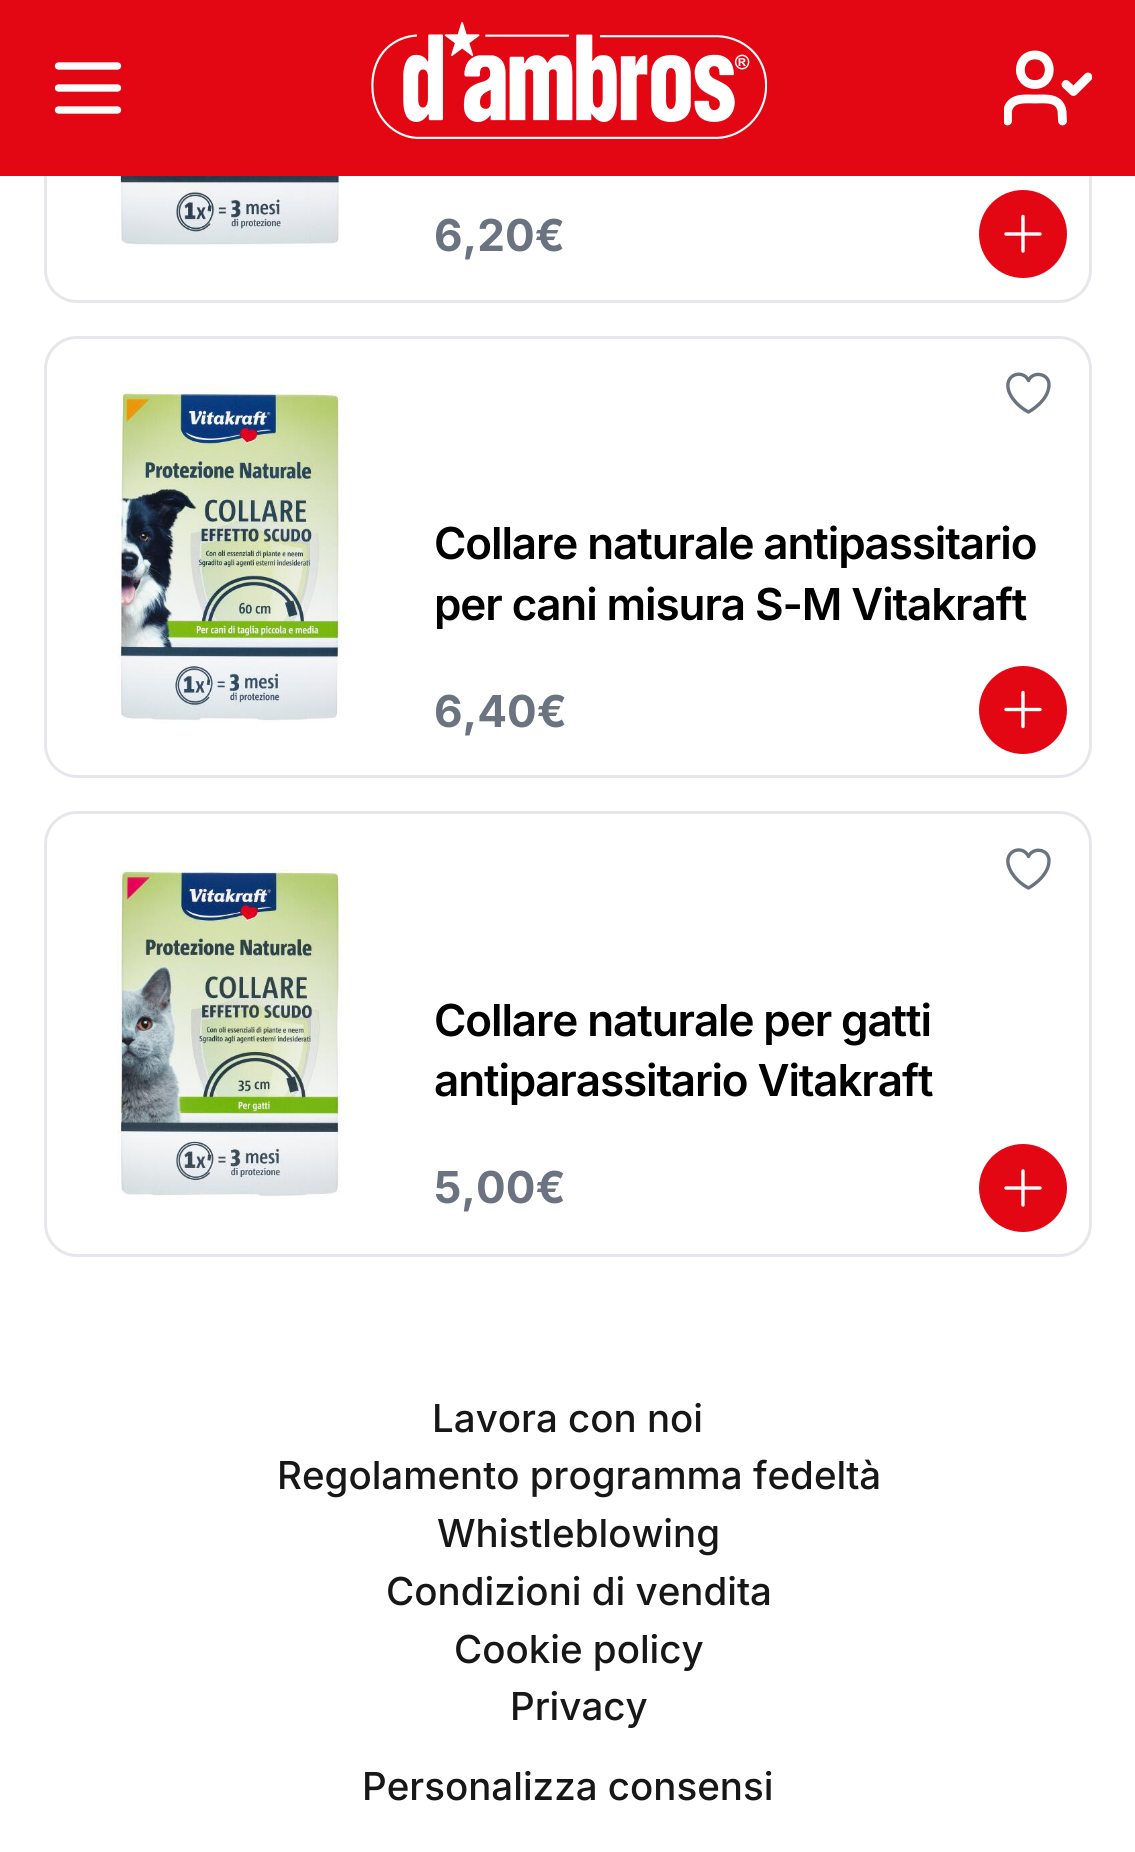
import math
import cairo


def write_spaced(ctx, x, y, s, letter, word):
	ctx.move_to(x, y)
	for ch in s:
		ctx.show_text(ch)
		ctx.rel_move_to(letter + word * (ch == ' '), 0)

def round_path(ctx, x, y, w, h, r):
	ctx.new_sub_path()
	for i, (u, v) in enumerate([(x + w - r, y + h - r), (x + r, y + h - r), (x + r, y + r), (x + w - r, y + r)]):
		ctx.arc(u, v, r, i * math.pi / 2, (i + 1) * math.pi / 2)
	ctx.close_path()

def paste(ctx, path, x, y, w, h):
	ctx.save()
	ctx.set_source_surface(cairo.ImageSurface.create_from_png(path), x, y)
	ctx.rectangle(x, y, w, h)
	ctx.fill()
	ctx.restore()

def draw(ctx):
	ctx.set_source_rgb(1, 1, 1)
	ctx.paint()
	round_path(ctx, 45.5, -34.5, 1045, 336, 31.5)
	ctx.set_source_rgb(0.898, 0.906, 0.922)
	ctx.set_line_width(3)
	ctx.stroke()
	ctx.set_source_rgb(0.89, 0.024, 0.075)
	ctx.rectangle(0, 0, 1135, 176)
	ctx.fill()
	ctx.new_path()
	ctx.move_to(58.5, 66)
	ctx.line_to(117.5, 66)
	ctx.move_to(58.5, 88)
	ctx.line_to(117.5, 88)
	ctx.move_to(58.5, 110)
	ctx.line_to(117.5, 110)
	ctx.set_source_rgb(1, 1, 1)
	ctx.set_line_width(7.3)
	ctx.set_line_cap(cairo.LINE_CAP_ROUND)
	ctx.set_line_join(cairo.LINE_JOIN_ROUND)
	ctx.stroke()
	paste(ctx, 'media/1.png', 371, 22, 396, 117)
	ctx.save()
	ctx.rectangle(1004, 44, 88, 88)
	ctx.clip()
	ctx.new_path()
	ctx.move_to(1062.5, 121)
	ctx.line_to(1062, 111)
	ctx.curve_to(1059.5, 97, 1045.5, 99, 1035, 99)
	ctx.curve_to(1024.5, 99, 1010.5, 97, 1007.5, 111)
	ctx.line_to(1007.5, 121)
	ctx.set_line_width(8.8)
	ctx.stroke()
	ctx.restore()
	ctx.new_path()
	ctx.move_to(1035, 84.5)
	ctx.curve_to(1054, 84.5, 1054, 55, 1035, 55)
	ctx.curve_to(1015.5, 55, 1015.5, 84.5, 1035, 84.5)
	ctx.close_path()
	ctx.set_line_width(8.8)
	ctx.stroke()
	ctx.save()
	ctx.rectangle(1004, 44, 88, 88)
	ctx.clip()
	ctx.new_path()
	ctx.move_to(1066, 84.5)
	ctx.line_to(1073.5, 91.5)
	ctx.line_to(1088, 77)
	ctx.stroke()
	ctx.restore()
	paste(ctx, 'media/2.png', 111, 176, 237, 71)
	ctx.select_font_face('Inter', cairo.FONT_SLANT_NORMAL, cairo.FONT_WEIGHT_BOLD)
	ctx.set_font_size(44)
	ctx.set_source_rgb(0.42, 0.447, 0.502)
	ctx.move_to(434, 251)
	ctx.show_text('6,20€')
	ctx.set_source_rgb(0.89, 0.024, 0.075)
	ctx.new_path()
	ctx.arc(1023, 234, 44, 0, 2 * math.pi)
	ctx.fill()
	ctx.new_path()
	ctx.move_to(1023, 216.5)
	ctx.line_to(1023, 251)
	ctx.move_to(1040, 234)
	ctx.line_to(1006, 234)
	ctx.set_source_rgb(1, 1, 1)
	ctx.set_line_width(3.4)
	ctx.stroke()
	round_path(ctx, 45.5, 337.5, 1045, 439, 31.5)
	ctx.set_source_rgb(0.898, 0.906, 0.922)
	ctx.set_line_width(3)
	ctx.set_line_cap(cairo.LINE_CAP_BUTT)
	ctx.set_line_join(cairo.LINE_JOIN_MITER)
	ctx.stroke()
	paste(ctx, 'media/3.png', 112, 385, 236, 338)
	ctx.new_path()
	ctx.move_to(1049, 384.5)
	ctx.curve_to(1049, 373.5, 1033, 370.5, 1028.5, 380.5)
	ctx.curve_to(1022.5, 367.5, 999.5, 375.5, 1011, 396)
	ctx.curve_to(1015, 402.5, 1021.5, 408.5, 1028.5, 412)
	ctx.curve_to(1028.5, 412, 1049, 401, 1049, 384.5)
	ctx.close_path()
	ctx.set_source_rgb(0.42, 0.447, 0.502)
	ctx.set_line_width(3.4)
	ctx.set_line_cap(cairo.LINE_CAP_ROUND)
	ctx.set_line_join(cairo.LINE_JOIN_ROUND)
	ctx.stroke()
	ctx.select_font_face('Inter SemiBold')
	ctx.set_source_rgb(0, 0, 0)
	write_spaced(ctx, 434, 559, 'Collare naturale antipassitario', -1.1, 0)
	write_spaced(ctx, 434, 620, 'per cani misura S-M Vitakraft', -1.1, 0)
	ctx.select_font_face('Inter', cairo.FONT_SLANT_NORMAL, cairo.FONT_WEIGHT_BOLD)
	ctx.set_source_rgb(0.42, 0.447, 0.502)
	ctx.move_to(434, 727)
	ctx.show_text('6,40€')
	ctx.set_source_rgb(0.89, 0.024, 0.075)
	ctx.new_path()
	ctx.arc(1023, 710, 44, 0, 2 * math.pi)
	ctx.fill()
	ctx.new_path()
	ctx.move_to(1023, 692.5)
	ctx.line_to(1023, 726.5)
	ctx.move_to(1040, 709.5)
	ctx.line_to(1006, 709.5)
	ctx.set_source_rgb(1, 1, 1)
	ctx.stroke()
	round_path(ctx, 45.5, 812.5, 1045, 443, 31.5)
	ctx.set_source_rgb(0.898, 0.906, 0.922)
	ctx.set_line_width(3)
	ctx.set_line_cap(cairo.LINE_CAP_BUTT)
	ctx.set_line_join(cairo.LINE_JOIN_MITER)
	ctx.stroke()
	paste(ctx, 'media/4.png', 112, 863, 236, 334)
	ctx.select_font_face('Inter SemiBold')
	ctx.set_source_rgb(0, 0, 0)
	write_spaced(ctx, 434, 1036, 'Collare naturale per gatti', -1.1, 0)
	write_spaced(ctx, 434, 1096, 'antiparassitario Vitakraft', -1.1, 0)
	ctx.new_path()
	ctx.move_to(1049, 860.5)
	ctx.curve_to(1049, 849, 1033, 846.5, 1028.5, 856.5)
	ctx.curve_to(1022.5, 843, 999.5, 851.5, 1011, 871.5)
	ctx.curve_to(1015, 878.5, 1021.5, 884.5, 1028.5, 888)
	ctx.curve_to(1028.5, 888, 1049, 877, 1049, 860.5)
	ctx.close_path()
	ctx.set_source_rgb(0.42, 0.447, 0.502)
	ctx.set_line_width(3.4)
	ctx.set_line_cap(cairo.LINE_CAP_ROUND)
	ctx.set_line_join(cairo.LINE_JOIN_ROUND)
	ctx.stroke()
	ctx.select_font_face('Inter', cairo.FONT_SLANT_NORMAL, cairo.FONT_WEIGHT_BOLD)
	ctx.move_to(434, 1203)
	ctx.show_text('5,00€')
	ctx.set_source_rgb(0.89, 0.024, 0.075)
	ctx.new_path()
	ctx.arc(1023, 1188, 44, 0, 2 * math.pi)
	ctx.fill()
	ctx.new_path()
	ctx.move_to(1023, 1171)
	ctx.line_to(1023, 1205)
	ctx.move_to(1040, 1188)
	ctx.line_to(1006, 1188)
	ctx.set_source_rgb(1, 1, 1)
	ctx.stroke()
	ctx.select_font_face('Inter Medium')
	ctx.set_font_size(38.5)
	ctx.set_source_rgb(0.09, 0.09, 0.09)
	for x, y, s in [
		(432, 1432, 'Lavora con noi'),
		(277, 1489, 'Regolamento programma fedeltà'),
		(437, 1547, 'Whistleblowing'),
		(386, 1605, 'Condizioni di vendita'),
		(454, 1663, 'Cookie policy'),
		(510, 1720, 'Privacy'),
		(362, 1800, 'Personalizza consensi'),
	]:
		ctx.move_to(x, y)
		ctx.show_text(s)


surface = cairo.ImageSurface(cairo.FORMAT_RGB24, 1135, 1852)
ctx = cairo.Context(surface)
options = cairo.FontOptions()
options.set_hint_metrics(cairo.HINT_METRICS_OFF)
options.set_hint_style(cairo.HINT_STYLE_NONE)
ctx.set_font_options(options)
ctx.set_miter_limit(4)
draw(ctx)
surface.write_to_png('image.png')
